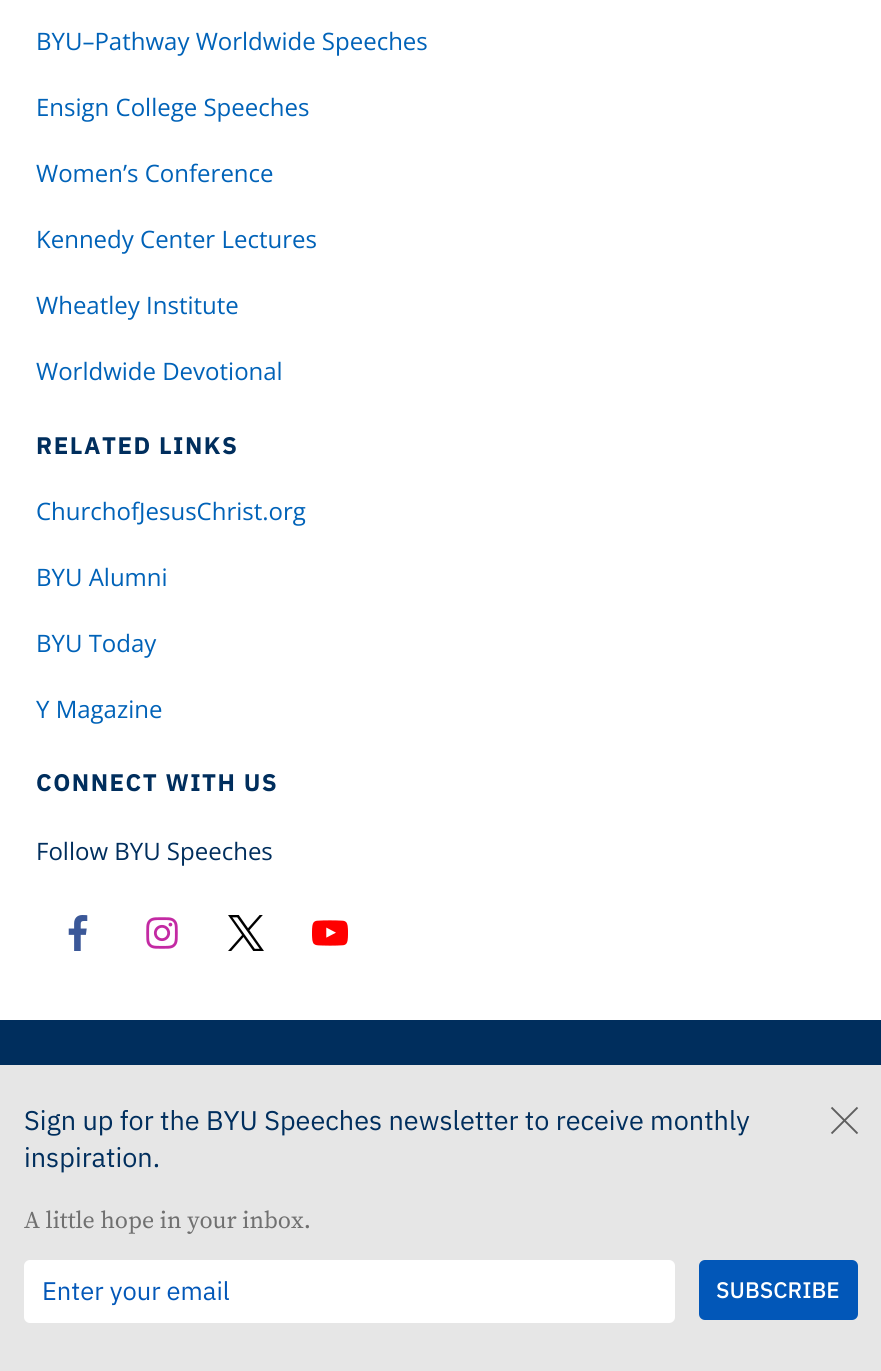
import math
import cairo


def write_spaced(ctx, x, y, s, letter, word):
	ctx.move_to(x, y)
	for ch in s:
		ctx.show_text(ch)
		ctx.rel_move_to(letter + word * (ch == ' '), 0)

def round_path(ctx, x, y, w, h, r):
	ctx.new_sub_path()
	for i, (u, v) in enumerate([(x + w - r, y + h - r), (x + r, y + h - r), (x + r, y + r), (x + w - r, y + r)]):
		ctx.arc(u, v, r, i * math.pi / 2, (i + 1) * math.pi / 2)
	ctx.close_path()

def paste(ctx, path, x, y, w, h):
	ctx.save()
	ctx.set_source_surface(cairo.ImageSurface.create_from_png(path), x, y)
	ctx.rectangle(x, y, w, h)
	ctx.fill()
	ctx.restore()

def draw(ctx):
	ctx.set_source_rgb(1, 1, 1)
	ctx.paint()
	ctx.select_font_face('Open Sans')
	ctx.set_font_size(24)
	ctx.set_source_rgb(0, 0.384, 0.722)
	for x, y, s in [
		(36, 50, 'BYU–Pathway Worldwide Speeches'),
		(36, 116, 'Ensign College Speeches'),
		(36, 182, 'Women’s Conference'),
		(36, 248, 'Kennedy Center Lectures'),
		(36, 314, 'Wheatley Institute'),
		(36, 380, 'Worldwide Devotional'),
	]:
		ctx.move_to(x, y)
		ctx.show_text(s)
	ctx.select_font_face('IBM Plex Sans', cairo.FONT_SLANT_NORMAL, cairo.FONT_WEIGHT_BOLD)
	ctx.set_source_rgb(0, 0.18, 0.365)
	write_spaced(ctx, 36, 454, 'RELATED LINKS', 1.5, 0)
	ctx.select_font_face('Open Sans')
	ctx.set_source_rgb(0, 0.384, 0.722)
	for x, y, s in [
		(36, 520, 'ChurchofJesusChrist.org'),
		(36, 586, 'BYU Alumni'),
		(36, 652, 'BYU Today'),
		(36, 718, 'Y Magazine'),
	]:
		ctx.move_to(x, y)
		ctx.show_text(s)
	ctx.select_font_face('IBM Plex Sans', cairo.FONT_SLANT_NORMAL, cairo.FONT_WEIGHT_BOLD)
	ctx.set_source_rgb(0, 0.18, 0.365)
	write_spaced(ctx, 36, 791, 'CONNECT WITH US', 1.5, 0)
	ctx.select_font_face('Open Sans')
	ctx.move_to(36, 860)
	ctx.show_text('Follow BYU Speeches')
	paste(ctx, 'media/1.png', 68, 915, 20, 36)
	paste(ctx, 'media/2.png', 146, 917, 32, 32)
	paste(ctx, 'media/3.png', 228, 915, 36, 36)
	paste(ctx, 'media/4.png', 312, 920, 36, 26)
	ctx.rectangle(0, 1020, 881, 45)
	ctx.fill()
	ctx.set_source_rgb(0.902, 0.902, 0.902)
	ctx.rectangle(0, 1065, 881, 306)
	ctx.fill()
	ctx.select_font_face('IBM Plex Sans')
	ctx.set_font_size(27)
	ctx.set_source_rgb(0, 0.18, 0.365)
	ctx.move_to(24, 1130)
	ctx.show_text('Sign up for the BYU Speeches newsletter to receive monthly')
	ctx.move_to(24, 1167)
	ctx.show_text('inspiration.')
	ctx.new_path()
	ctx.move_to(831.5, 1107.5)
	ctx.line_to(857.5, 1133.5)
	ctx.move_to(857.5, 1107.5)
	ctx.line_to(831.5, 1133.5)
	ctx.set_source_rgb(0.373, 0.373, 0.373)
	ctx.set_line_width(1.9)
	ctx.stroke()
	ctx.select_font_face('Source Serif Pro')
	ctx.set_font_size(24)
	ctx.set_source_rgb(0.439, 0.439, 0.439)
	ctx.move_to(24, 1228)
	ctx.show_text('A little hope in your inbox.')
	ctx.set_source_rgb(1, 1, 1)
	round_path(ctx, 24, 1260, 651, 63, 6)
	ctx.fill()
	ctx.select_font_face('IBM Plex Sans')
	ctx.set_font_size(25.5)
	ctx.set_source_rgb(0.008, 0.341, 0.722)
	ctx.move_to(42, 1300)
	ctx.show_text('Enter your email')
	round_path(ctx, 699, 1260, 159, 60, 6)
	ctx.fill()
	ctx.select_font_face('IBM Plex Sans Medium')
	ctx.set_font_size(22.5)
	ctx.set_source_rgb(1, 1, 1)
	ctx.move_to(716, 1298)
	ctx.show_text('SUBSCRIBE')


surface = cairo.ImageSurface(cairo.FORMAT_RGB24, 881, 1371)
ctx = cairo.Context(surface)
options = cairo.FontOptions()
options.set_hint_metrics(cairo.HINT_METRICS_OFF)
options.set_hint_style(cairo.HINT_STYLE_NONE)
ctx.set_font_options(options)
ctx.set_miter_limit(4)
draw(ctx)
surface.write_to_png('image.png')
